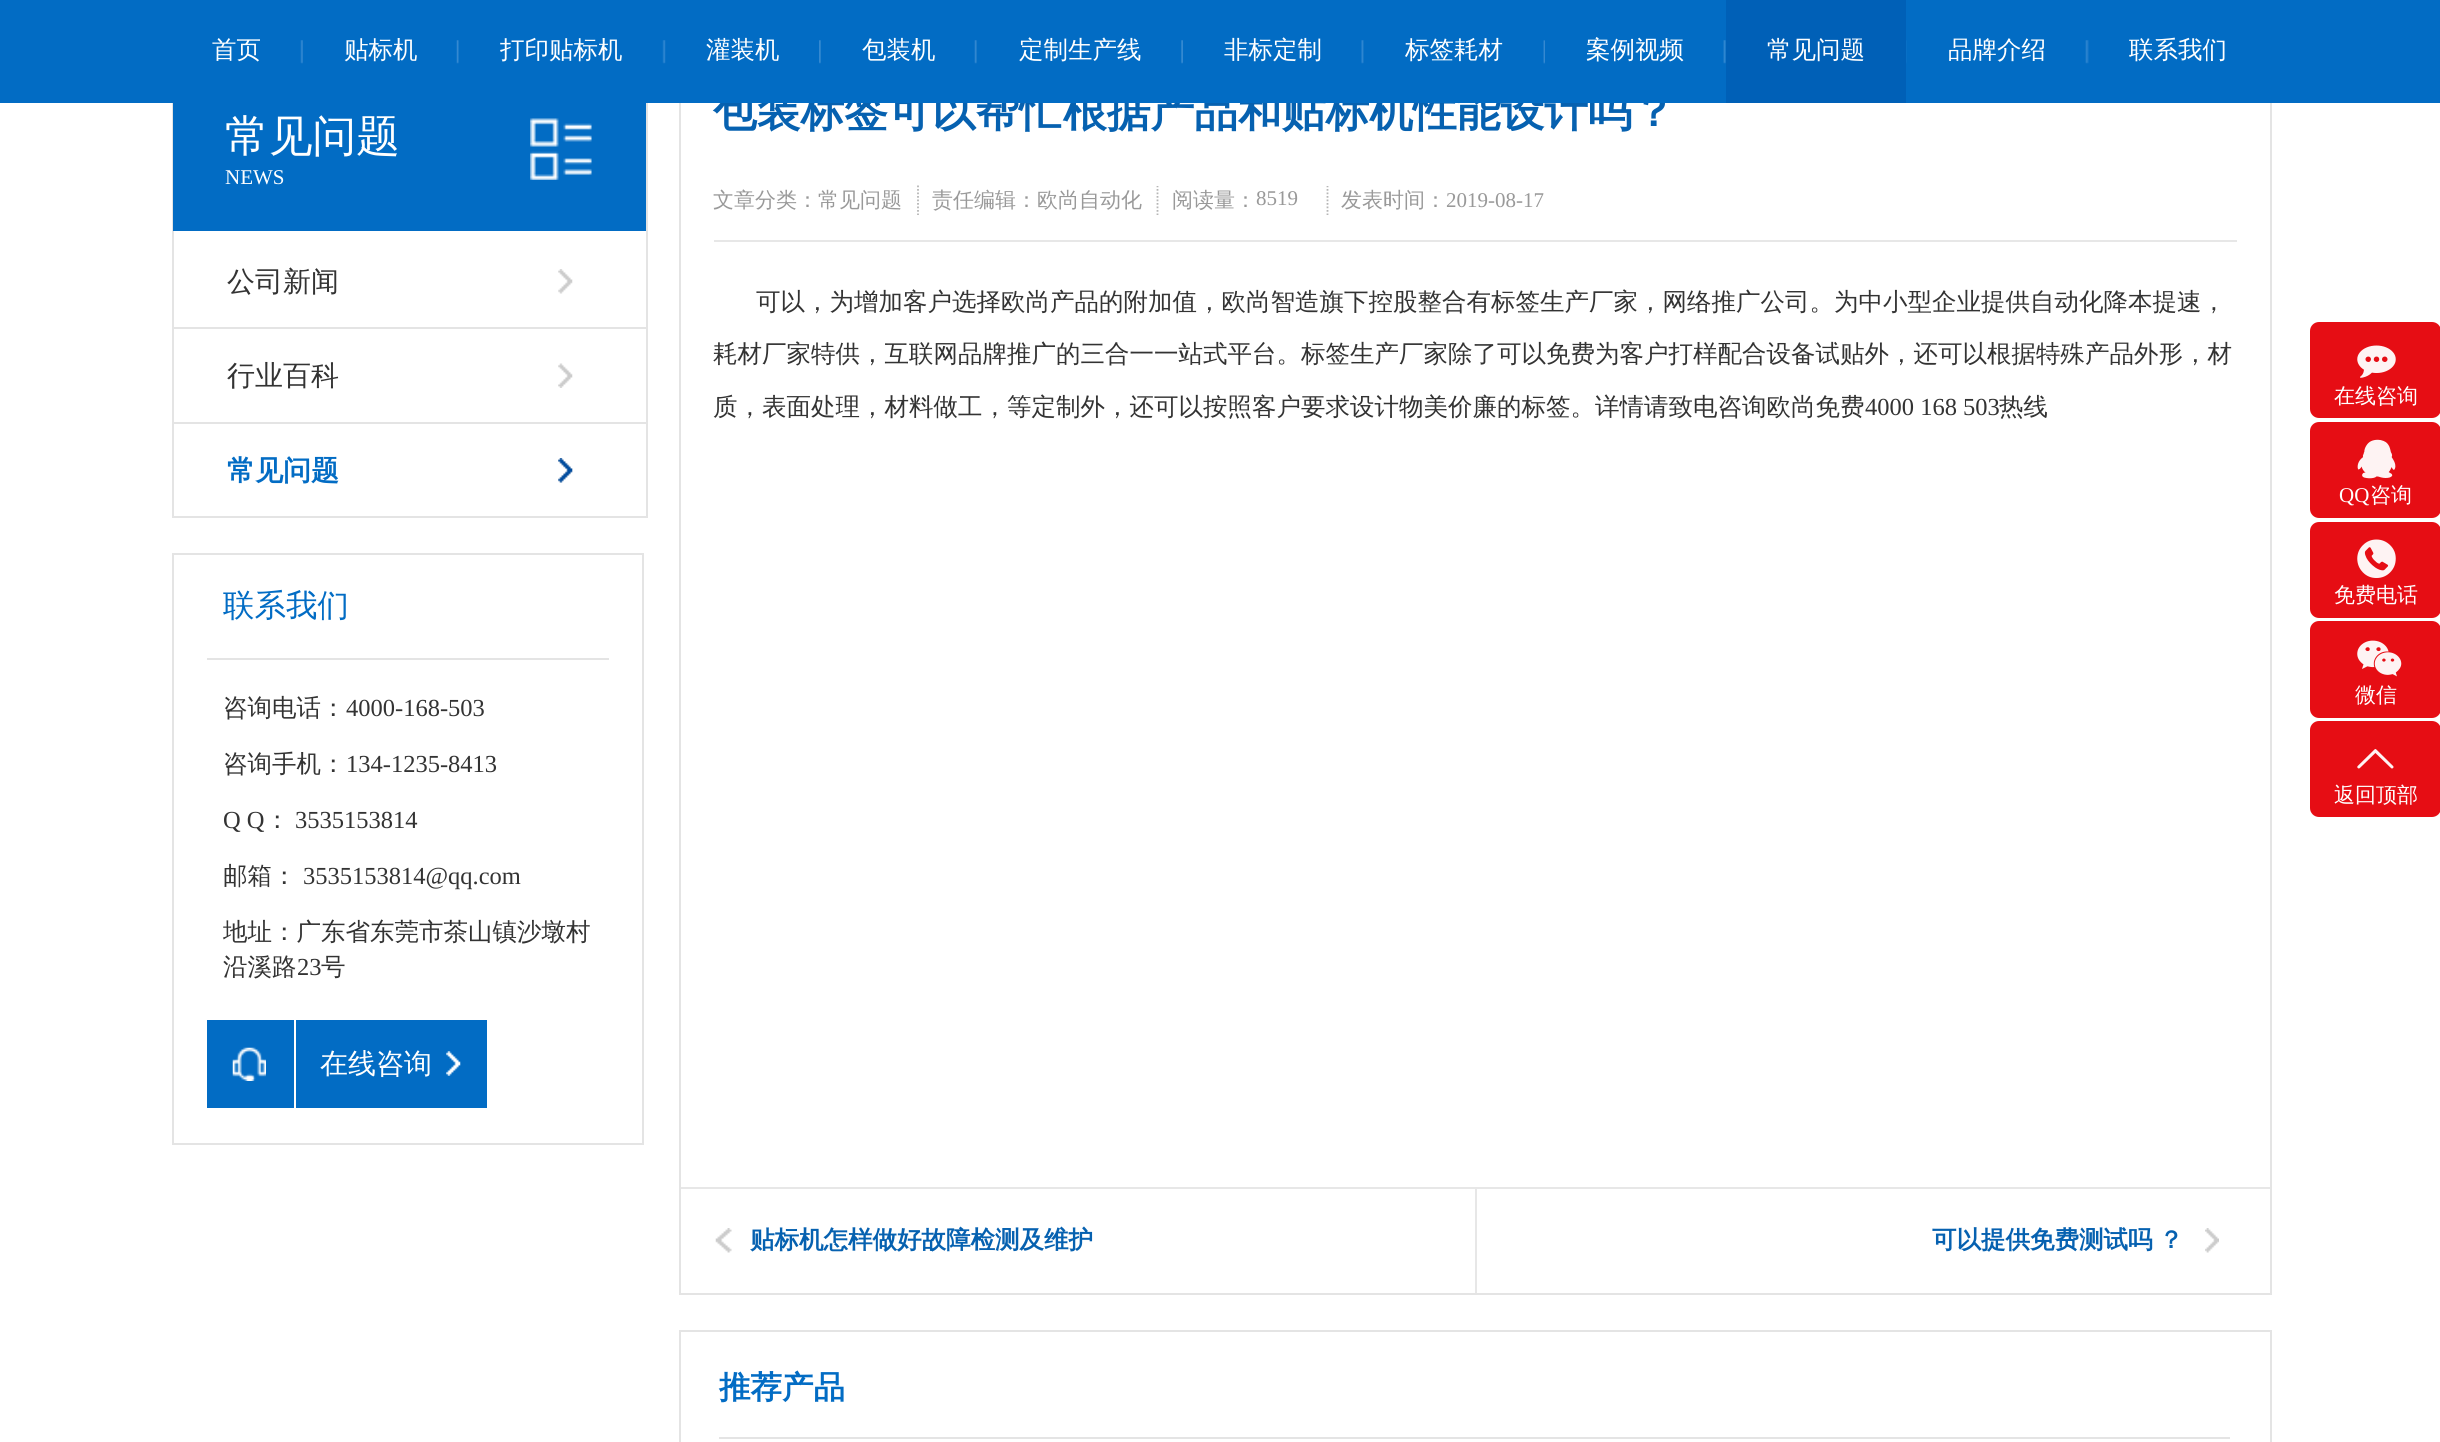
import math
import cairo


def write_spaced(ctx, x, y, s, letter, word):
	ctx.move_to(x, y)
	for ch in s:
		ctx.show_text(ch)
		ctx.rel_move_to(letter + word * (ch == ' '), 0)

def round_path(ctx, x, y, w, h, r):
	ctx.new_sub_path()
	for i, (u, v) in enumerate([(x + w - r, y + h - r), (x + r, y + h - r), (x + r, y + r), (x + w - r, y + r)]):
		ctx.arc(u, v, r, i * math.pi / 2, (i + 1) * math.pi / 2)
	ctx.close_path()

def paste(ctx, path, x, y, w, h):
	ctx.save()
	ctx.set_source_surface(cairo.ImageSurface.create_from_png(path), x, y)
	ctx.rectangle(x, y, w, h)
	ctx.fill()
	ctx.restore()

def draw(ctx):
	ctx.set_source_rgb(1, 1, 1)
	ctx.paint()
	ctx.rectangle(173, 45, 474, 472)
	ctx.set_source_rgb(0.894, 0.894, 0.894)
	ctx.stroke()
	ctx.rectangle(680, 45, 1591, 1249)
	ctx.stroke()
	ctx.select_font_face('WenQuanYi Zen Hei', cairo.FONT_SLANT_NORMAL, cairo.FONT_WEIGHT_BOLD)
	ctx.set_font_size(43.75)
	ctx.set_source_rgb(0.024, 0.38, 0.69)
	ctx.move_to(713, 126)
	ctx.show_text('包装标签可以帮忙根据产品和贴标机性能设计吗？')
	ctx.set_source_rgb(0.008, 0.424, 0.769)
	ctx.rectangle(0, 0, 2440, 103)
	ctx.fill()
	paste(ctx, 'media/1.png', 300, 40, 3, 24)
	ctx.select_font_face('WenQuanYi Zen Hei Medium')
	ctx.set_font_size(24.5)
	ctx.set_source_rgb(1, 1, 1)
	ctx.move_to(212, 58)
	ctx.show_text('首页')
	paste(ctx, 'media/2.png', 456, 40, 3, 24)
	ctx.move_to(344, 58)
	ctx.show_text('贴标机')
	paste(ctx, 'media/3.png', 662, 40, 4, 24)
	ctx.move_to(500, 58)
	ctx.show_text('打印贴标机')
	paste(ctx, 'media/4.png', 819, 40, 2, 24)
	ctx.move_to(706, 58)
	ctx.show_text('灌装机')
	paste(ctx, 'media/5.png', 974, 40, 3, 24)
	ctx.move_to(862, 58)
	ctx.show_text('包装机')
	paste(ctx, 'media/6.png', 1181, 40, 2, 24)
	ctx.move_to(1019, 58)
	ctx.show_text('定制生产线')
	paste(ctx, 'media/7.png', 1361, 40, 3, 24)
	ctx.move_to(1224, 58)
	ctx.show_text('非标定制')
	paste(ctx, 'media/8.png', 1543, 40, 2, 24)
	ctx.move_to(1405, 58)
	ctx.show_text('标签耗材')
	paste(ctx, 'media/9.png', 1723, 40, 3, 24)
	ctx.move_to(1586, 58)
	ctx.show_text('案例视频')
	paste(ctx, 'media/10.png', 1906, 40, 1, 24)
	ctx.set_source_rgb(0, 0.376, 0.718)
	ctx.rectangle(1726, 0, 180, 103)
	ctx.fill()
	ctx.set_source_rgb(1, 1, 1)
	ctx.move_to(1767, 58)
	ctx.show_text('常见问题')
	paste(ctx, 'media/11.png', 2085, 40, 4, 24)
	ctx.move_to(1948, 58)
	ctx.show_text('品牌介绍')
	ctx.move_to(2129, 58)
	ctx.show_text('联系我们')
	ctx.set_source_rgb(0.008, 0.424, 0.769)
	ctx.rectangle(173, 103, 473, 128)
	ctx.fill()
	paste(ctx, 'media/12.png', 530, 118, 62, 62)
	ctx.set_font_size(43.75)
	ctx.set_source_rgb(1, 1, 1)
	ctx.move_to(225, 151)
	ctx.show_text('常见问题')
	ctx.select_font_face('Liberation Serif')
	ctx.set_font_size(21)
	ctx.move_to(225, 184)
	ctx.show_text('NEWS')
	paste(ctx, 'media/13.png', 558, 269, 15, 25)
	ctx.set_source_rgb(0.894, 0.894, 0.894)
	ctx.rectangle(173, 327, 473, 2)
	ctx.fill()
	ctx.select_font_face('WenQuanYi Zen Hei Medium')
	ctx.set_font_size(28)
	ctx.set_source_rgb(0.2, 0.2, 0.2)
	ctx.move_to(227, 291)
	ctx.show_text('公司新闻')
	paste(ctx, 'media/14.png', 558, 363, 15, 25)
	ctx.set_source_rgb(0.894, 0.894, 0.894)
	ctx.rectangle(173, 422, 473, 2)
	ctx.fill()
	ctx.set_source_rgb(0.2, 0.2, 0.2)
	ctx.move_to(227, 385)
	ctx.show_text('行业百科')
	paste(ctx, 'media/13.png', 558, 458, 15, 25)
	paste(ctx, 'media/15.png', 558, 458, 15, 25)
	ctx.select_font_face('WenQuanYi Zen Hei', cairo.FONT_SLANT_NORMAL, cairo.FONT_WEIGHT_BOLD)
	ctx.set_source_rgb(0.008, 0.424, 0.769)
	ctx.move_to(227, 480)
	ctx.show_text('常见问题')
	ctx.rectangle(173, 554, 470, 590)
	ctx.set_source_rgb(0.894, 0.894, 0.894)
	ctx.stroke()
	ctx.rectangle(207, 658, 402, 2)
	ctx.fill()
	ctx.select_font_face('WenQuanYi Zen Hei Medium')
	ctx.set_font_size(31.5)
	ctx.set_source_rgb(0.008, 0.424, 0.769)
	ctx.move_to(223, 616)
	ctx.show_text('联系我们')
	ctx.set_font_size(24.5)
	ctx.set_source_rgb(0.2, 0.2, 0.2)
	ctx.move_to(223, 716)
	ctx.show_text('咨询电话：')
	ctx.select_font_face('Liberation Serif')
	ctx.move_to(346, 716)
	ctx.show_text('4000-168-503')
	ctx.select_font_face('WenQuanYi Zen Hei Medium')
	ctx.move_to(223, 772)
	ctx.show_text('咨询手机：')
	ctx.select_font_face('Liberation Serif')
	ctx.move_to(346, 772)
	ctx.show_text('134-1235-8413')
	ctx.move_to(223, 828)
	ctx.show_text('Q Q')
	ctx.select_font_face('WenQuanYi Zen Hei Medium')
	ctx.move_to(265, 828)
	ctx.show_text('：')
	ctx.select_font_face('Liberation Serif')
	ctx.move_to(295, 828)
	ctx.show_text('3535153814')
	ctx.select_font_face('WenQuanYi Zen Hei Medium')
	ctx.move_to(223, 884)
	ctx.show_text('邮箱：')
	ctx.select_font_face('Liberation Serif')
	ctx.move_to(303, 884)
	ctx.show_text('3535153814@qq.com')
	ctx.select_font_face('WenQuanYi Zen Hei Medium')
	ctx.move_to(223, 940)
	ctx.show_text('地址：广东省东莞市茶山镇沙墩村')
	ctx.move_to(223, 975)
	ctx.show_text('沿溪路')
	ctx.select_font_face('Liberation Serif')
	ctx.move_to(297, 975)
	ctx.show_text('23')
	ctx.select_font_face('WenQuanYi Zen Hei Medium')
	ctx.move_to(321, 975)
	ctx.show_text('号')
	ctx.set_source_rgb(0.008, 0.424, 0.769)
	ctx.rectangle(207, 1020, 280, 88)
	ctx.fill()
	paste(ctx, 'media/16.png', 232, 1047, 34, 34)
	ctx.set_source_rgb(1, 1, 1)
	ctx.rectangle(294, 1020, 2, 88)
	ctx.fill()
	ctx.set_font_size(28)
	ctx.move_to(320, 1073)
	ctx.show_text('在线咨询')
	paste(ctx, 'media/17.png', 446, 1051, 15, 25)
	ctx.set_font_size(21)
	ctx.set_source_rgb(0.6, 0.6, 0.6)
	ctx.move_to(713, 207)
	ctx.show_text('文章分类：常见问题')
	ctx.new_path()
	ctx.move_to(918, 185.5)
	ctx.line_to(918, 215)
	ctx.set_source_rgb(0.714, 0.714, 0.714)
	ctx.set_line_width(1.8)
	ctx.set_dash([1.75, 1.75])
	ctx.stroke()
	ctx.set_source_rgb(0.6, 0.6, 0.6)
	ctx.move_to(932, 207)
	ctx.show_text('责任编辑：欧尚自动化')
	ctx.save()
	ctx.rectangle(714, 186, 845, 29)
	ctx.clip()
	ctx.new_path()
	ctx.move_to(1157.5, 185.5)
	ctx.line_to(1157.5, 215)
	ctx.set_source_rgb(0.714, 0.714, 0.714)
	ctx.stroke()
	ctx.restore()
	ctx.move_to(1172, 207)
	ctx.show_text('阅读量：')
	ctx.select_font_face('Liberation Serif')
	ctx.move_to(1256, 205)
	ctx.show_text('8519')
	ctx.save()
	ctx.rectangle(714, 186, 845, 29)
	ctx.clip()
	ctx.new_path()
	ctx.move_to(1327.5, 185.5)
	ctx.line_to(1327.5, 215)
	ctx.set_source_rgb(0.714, 0.714, 0.714)
	ctx.stroke()
	ctx.restore()
	ctx.select_font_face('WenQuanYi Zen Hei Medium')
	ctx.move_to(1341, 207)
	ctx.show_text('发表时间：')
	ctx.select_font_face('Liberation Serif')
	ctx.move_to(1446, 207)
	ctx.show_text('2019-08-17')
	ctx.set_source_rgb(0.906, 0.906, 0.906)
	ctx.rectangle(714, 240, 1523, 2)
	ctx.fill()
	ctx.select_font_face('WenQuanYi Zen Hei Medium')
	ctx.set_font_size(24.5)
	ctx.set_source_rgb(0.2, 0.2, 0.2)
	for x, y, s in [
		(756, 310, '可以，为增加客户选择欧尚产品的附加值，欧尚智造旗下控股整合有标签生产厂家，网络推广公司。为中小型企业提供自动化降本提速，'),
		(713, 362, '耗材厂家特供，互联网品牌推广的三合一一站式平台。标签生产厂家除了可以免费为客户打样配合设备试贴外，还可以根据特殊产品外形，材'),
		(713, 415, '质，表面处理，材料做工，等定制外，还可以按照客户要求设计物美价廉的标签。详情请致电咨询欧尚免费'),
	]:
		ctx.move_to(x, y)
		ctx.show_text(s)
	ctx.select_font_face('Liberation Serif')
	ctx.move_to(1865, 415)
	ctx.show_text('4000 168 503')
	ctx.select_font_face('WenQuanYi Zen Hei Medium')
	ctx.move_to(1999, 415)
	ctx.show_text('热线')
	ctx.set_source_rgb(0.906, 0.906, 0.906)
	ctx.rectangle(681, 1187, 1589, 2)
	ctx.fill()
	paste(ctx, 'media/18.png', 715, 1228, 17, 25)
	ctx.select_font_face('WenQuanYi Zen Hei', cairo.FONT_SLANT_NORMAL, cairo.FONT_WEIGHT_BOLD)
	ctx.set_source_rgb(0.024, 0.38, 0.69)
	ctx.move_to(750, 1248)
	ctx.show_text('贴标机怎样做好故障检测及维护')
	ctx.set_source_rgb(0.906, 0.906, 0.906)
	ctx.rectangle(1475, 1188, 2, 105)
	ctx.fill()
	paste(ctx, 'media/19.png', 2205, 1228, 14, 25)
	ctx.set_source_rgb(0.024, 0.38, 0.69)
	write_spaced(ctx, 1932, 1248, '可以提供免费测试吗 ？', 0, -1)
	ctx.rectangle(680, 1331, 1591, 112)
	ctx.set_source_rgb(0.894, 0.894, 0.894)
	ctx.set_line_width(2)
	ctx.set_dash([])
	ctx.stroke()
	ctx.rectangle(719, 1437, 1511, 2)
	ctx.fill()
	ctx.set_font_size(31.5)
	ctx.set_source_rgb(0.008, 0.424, 0.769)
	ctx.move_to(719, 1398)
	ctx.show_text('推荐产品')
	ctx.set_source_rgb(0.902, 0.051, 0.082)
	round_path(ctx, 2310, 322, 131, 96, 9)
	ctx.fill()
	paste(ctx, 'media/20.png', 2357, 345, 39, 33)
	ctx.select_font_face('WenQuanYi Zen Hei Medium')
	ctx.set_font_size(21)
	ctx.set_source_rgb(1, 1, 1)
	ctx.move_to(2334, 403)
	ctx.show_text('在线咨询')
	ctx.set_source_rgb(0.902, 0.051, 0.082)
	round_path(ctx, 2310, 422, 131, 96, 9)
	ctx.fill()
	paste(ctx, 'media/21.png', 2357, 439, 39, 40)
	ctx.select_font_face('Liberation Serif')
	ctx.set_source_rgb(1, 1, 1)
	ctx.move_to(2339, 502)
	ctx.show_text('QQ')
	ctx.select_font_face('WenQuanYi Zen Hei Medium')
	ctx.move_to(2370, 502)
	ctx.show_text('咨询')
	ctx.set_source_rgb(0.902, 0.051, 0.082)
	round_path(ctx, 2310, 522, 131, 96, 9)
	ctx.fill()
	paste(ctx, 'media/22.png', 2357, 539, 39, 39)
	ctx.set_source_rgb(1, 1, 1)
	ctx.move_to(2334, 602)
	ctx.show_text('免费电话')
	ctx.set_source_rgb(0.902, 0.051, 0.082)
	round_path(ctx, 2310, 621, 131, 97, 9)
	ctx.fill()
	paste(ctx, 'media/23.png', 2357, 640, 45, 37)
	ctx.set_source_rgb(1, 1, 1)
	ctx.move_to(2355, 702)
	ctx.show_text('微信')
	ctx.set_source_rgb(0.902, 0.051, 0.082)
	round_path(ctx, 2310, 721, 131, 96, 9)
	ctx.fill()
	paste(ctx, 'media/24.png', 2357, 749, 37, 20)
	ctx.set_source_rgb(1, 1, 1)
	ctx.move_to(2334, 802)
	ctx.show_text('返回顶部')


surface = cairo.ImageSurface(cairo.FORMAT_RGB24, 2440, 1442)
ctx = cairo.Context(surface)
options = cairo.FontOptions()
options.set_hint_metrics(cairo.HINT_METRICS_OFF)
options.set_hint_style(cairo.HINT_STYLE_NONE)
ctx.set_font_options(options)
ctx.set_miter_limit(4)
draw(ctx)
surface.write_to_png('image.png')
